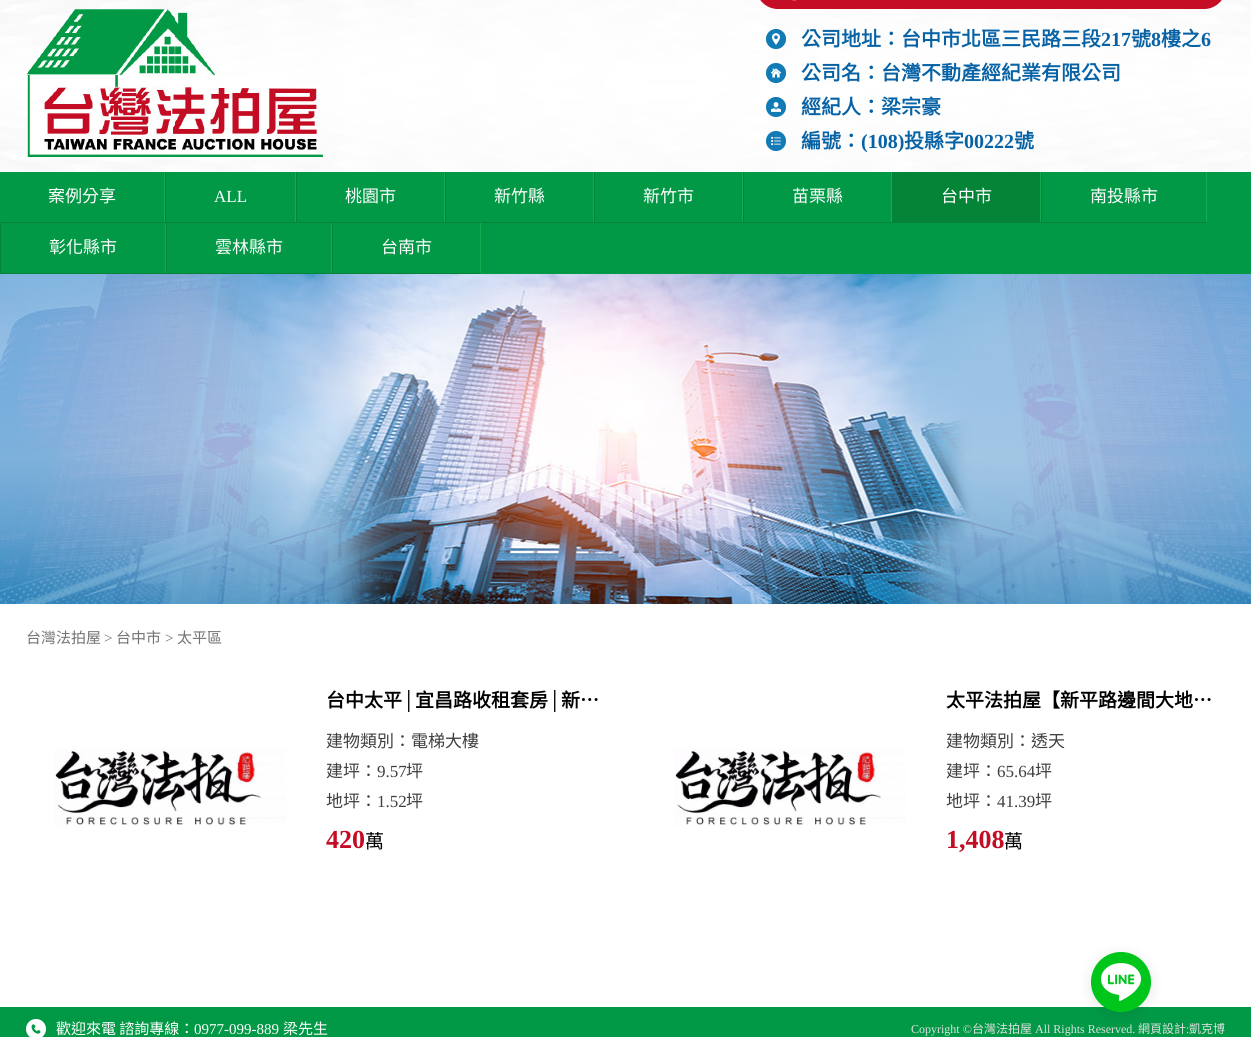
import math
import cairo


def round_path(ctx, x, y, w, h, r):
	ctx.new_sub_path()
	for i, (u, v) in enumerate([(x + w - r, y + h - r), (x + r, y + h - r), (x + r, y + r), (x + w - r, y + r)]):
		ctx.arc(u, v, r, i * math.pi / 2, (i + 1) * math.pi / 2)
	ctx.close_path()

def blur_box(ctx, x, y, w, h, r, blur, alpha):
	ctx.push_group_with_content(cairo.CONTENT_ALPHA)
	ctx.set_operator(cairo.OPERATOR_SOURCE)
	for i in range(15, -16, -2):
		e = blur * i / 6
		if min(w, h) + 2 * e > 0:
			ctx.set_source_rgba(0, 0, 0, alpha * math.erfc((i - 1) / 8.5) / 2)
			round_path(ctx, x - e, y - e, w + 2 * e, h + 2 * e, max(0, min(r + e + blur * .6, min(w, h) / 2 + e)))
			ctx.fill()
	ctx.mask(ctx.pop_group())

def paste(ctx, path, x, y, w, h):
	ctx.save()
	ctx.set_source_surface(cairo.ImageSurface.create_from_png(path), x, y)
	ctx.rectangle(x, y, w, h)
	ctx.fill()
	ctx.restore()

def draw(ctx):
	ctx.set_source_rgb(1, 1, 1)
	ctx.paint()
	paste(ctx, 'media/1.png', 0, 0, 1251, 172)
	paste(ctx, 'media/2.png', 760, 0, 462, 9)
	paste(ctx, 'media/3.png', 27, 9, 296, 148)
	paste(ctx, 'media/4.png', 766, 29, 20, 20)
	ctx.select_font_face('Noto Sans CJK TC', cairo.FONT_SLANT_NORMAL, cairo.FONT_WEIGHT_BOLD)
	ctx.set_font_size(20)
	ctx.set_source_rgb(0.031, 0.384, 0.647)
	ctx.move_to(801, 46)
	ctx.show_text('公司地址：台中市北區三民路三段')
	ctx.select_font_face('Liberation Serif', cairo.FONT_SLANT_NORMAL, cairo.FONT_WEIGHT_BOLD)
	ctx.move_to(1101, 46)
	ctx.show_text('217')
	ctx.select_font_face('Noto Sans CJK TC', cairo.FONT_SLANT_NORMAL, cairo.FONT_WEIGHT_BOLD)
	ctx.move_to(1131, 46)
	ctx.show_text('號')
	ctx.select_font_face('Liberation Serif', cairo.FONT_SLANT_NORMAL, cairo.FONT_WEIGHT_BOLD)
	ctx.move_to(1151, 46)
	ctx.show_text('8')
	ctx.select_font_face('Noto Sans CJK TC', cairo.FONT_SLANT_NORMAL, cairo.FONT_WEIGHT_BOLD)
	ctx.move_to(1161, 46)
	ctx.show_text('樓之')
	ctx.select_font_face('Liberation Serif', cairo.FONT_SLANT_NORMAL, cairo.FONT_WEIGHT_BOLD)
	ctx.move_to(1201, 46)
	ctx.show_text('6')
	paste(ctx, 'media/5.png', 766, 63, 20, 20)
	ctx.select_font_face('Noto Sans CJK TC', cairo.FONT_SLANT_NORMAL, cairo.FONT_WEIGHT_BOLD)
	ctx.move_to(801, 80)
	ctx.show_text('公司名：台灣不動產經紀業有限公司')
	paste(ctx, 'media/6.png', 766, 97, 20, 20)
	ctx.move_to(801, 114)
	ctx.show_text('經紀人：梁宗豪')
	paste(ctx, 'media/7.png', 766, 131, 20, 20)
	ctx.move_to(801, 148)
	ctx.show_text('編號：')
	ctx.select_font_face('Liberation Serif', cairo.FONT_SLANT_NORMAL, cairo.FONT_WEIGHT_BOLD)
	ctx.move_to(861, 148)
	ctx.show_text('(108)')
	ctx.select_font_face('Noto Sans CJK TC', cairo.FONT_SLANT_NORMAL, cairo.FONT_WEIGHT_BOLD)
	ctx.move_to(904, 148)
	ctx.show_text('投縣字')
	ctx.select_font_face('Liberation Serif', cairo.FONT_SLANT_NORMAL, cairo.FONT_WEIGHT_BOLD)
	ctx.move_to(964, 148)
	ctx.show_text('00222')
	ctx.select_font_face('Noto Sans CJK TC', cairo.FONT_SLANT_NORMAL, cairo.FONT_WEIGHT_BOLD)
	ctx.move_to(1014, 148)
	ctx.show_text('號')
	ctx.set_source_rgb(0.004, 0.6, 0.275)
	ctx.rectangle(0, 172, 1251, 102)
	ctx.fill()
	ctx.set_source_rgb(0.071, 0.678, 0.314)
	ctx.rectangle(164, 172, 1, 51)
	ctx.fill()
	ctx.set_source_rgb(0.027, 0.51, 0.224)
	ctx.rectangle(0, 222, 165, 1)
	ctx.fill()
	ctx.select_font_face('Noto Sans CJK TC')
	ctx.set_font_size(17)
	ctx.set_source_rgb(1, 1, 1)
	ctx.move_to(48, 202)
	ctx.show_text('案例分享')
	ctx.set_source_rgb(0.071, 0.678, 0.314)
	ctx.rectangle(295, 172, 1, 51)
	ctx.fill()
	ctx.set_source_rgb(0.027, 0.51, 0.224)
	ctx.rectangle(165, 222, 131, 1)
	ctx.fill()
	ctx.set_source_rgb(0, 0.518, 0.22)
	ctx.rectangle(165, 172, 1, 51)
	ctx.fill()
	ctx.select_font_face('Liberation Serif')
	ctx.set_source_rgb(1, 1, 1)
	ctx.move_to(214, 202)
	ctx.show_text('ALL')
	ctx.set_source_rgb(0.071, 0.678, 0.314)
	ctx.rectangle(444, 172, 1, 51)
	ctx.fill()
	ctx.set_source_rgb(0.027, 0.51, 0.224)
	ctx.rectangle(296, 222, 149, 1)
	ctx.fill()
	ctx.set_source_rgb(0, 0.518, 0.22)
	ctx.rectangle(296, 172, 1, 51)
	ctx.fill()
	ctx.select_font_face('Noto Sans CJK TC')
	ctx.set_source_rgb(1, 1, 1)
	ctx.move_to(345, 202)
	ctx.show_text('桃園市')
	ctx.set_source_rgb(0.071, 0.678, 0.314)
	ctx.rectangle(593, 172, 1, 51)
	ctx.fill()
	ctx.set_source_rgb(0.027, 0.51, 0.224)
	ctx.rectangle(445, 222, 149, 1)
	ctx.fill()
	ctx.set_source_rgb(0, 0.518, 0.22)
	ctx.rectangle(445, 172, 1, 51)
	ctx.fill()
	ctx.set_source_rgb(1, 1, 1)
	ctx.move_to(494, 202)
	ctx.show_text('新竹縣')
	ctx.set_source_rgb(0.071, 0.678, 0.314)
	ctx.rectangle(742, 172, 1, 51)
	ctx.fill()
	ctx.set_source_rgb(0.027, 0.51, 0.224)
	ctx.rectangle(594, 222, 149, 1)
	ctx.fill()
	ctx.set_source_rgb(0, 0.518, 0.22)
	ctx.rectangle(594, 172, 1, 51)
	ctx.fill()
	ctx.set_source_rgb(1, 1, 1)
	ctx.move_to(643, 202)
	ctx.show_text('新竹市')
	ctx.set_source_rgb(0.071, 0.678, 0.314)
	ctx.rectangle(891, 172, 1, 51)
	ctx.fill()
	ctx.set_source_rgb(0.027, 0.51, 0.224)
	ctx.rectangle(743, 222, 149, 1)
	ctx.fill()
	ctx.set_source_rgb(0, 0.518, 0.22)
	ctx.rectangle(743, 172, 1, 51)
	ctx.fill()
	ctx.set_source_rgb(1, 1, 1)
	ctx.move_to(792, 202)
	ctx.show_text('苗栗縣')
	ctx.set_source_rgb(0.012, 0.518, 0.216)
	ctx.rectangle(893, 172, 147, 50)
	ctx.fill()
	ctx.set_source_rgb(0.071, 0.678, 0.314)
	ctx.rectangle(1040, 172, 1, 51)
	ctx.fill()
	ctx.set_source_rgb(0.027, 0.51, 0.224)
	ctx.rectangle(892, 222, 149, 1)
	ctx.fill()
	ctx.set_source_rgb(0, 0.518, 0.22)
	ctx.rectangle(892, 172, 1, 51)
	ctx.fill()
	ctx.set_source_rgb(1, 1, 1)
	ctx.move_to(941, 202)
	ctx.show_text('台中市')
	ctx.set_source_rgb(0.071, 0.678, 0.314)
	ctx.rectangle(1206, 172, 1, 51)
	ctx.fill()
	ctx.set_source_rgb(0.027, 0.51, 0.224)
	ctx.rectangle(1041, 222, 166, 1)
	ctx.fill()
	ctx.set_source_rgb(0, 0.518, 0.22)
	ctx.rectangle(1041, 172, 1, 51)
	ctx.fill()
	ctx.set_source_rgb(1, 1, 1)
	ctx.move_to(1090, 202)
	ctx.show_text('南投縣市')
	ctx.set_source_rgb(0.071, 0.678, 0.314)
	ctx.rectangle(165, 223, 1, 51)
	ctx.fill()
	ctx.set_source_rgb(0.027, 0.51, 0.224)
	ctx.rectangle(0, 273, 166, 1)
	ctx.fill()
	ctx.set_source_rgb(0, 0.518, 0.22)
	ctx.rectangle(0, 223, 1, 51)
	ctx.fill()
	ctx.set_source_rgb(1, 1, 1)
	ctx.move_to(49, 253)
	ctx.show_text('彰化縣市')
	ctx.set_source_rgb(0.071, 0.678, 0.314)
	ctx.rectangle(331, 223, 1, 51)
	ctx.fill()
	ctx.set_source_rgb(0.027, 0.51, 0.224)
	ctx.rectangle(166, 273, 166, 1)
	ctx.fill()
	ctx.set_source_rgb(0, 0.518, 0.22)
	ctx.rectangle(166, 223, 1, 51)
	ctx.fill()
	ctx.set_source_rgb(1, 1, 1)
	ctx.move_to(215, 253)
	ctx.show_text('雲林縣市')
	ctx.set_source_rgb(0.071, 0.678, 0.314)
	ctx.rectangle(480, 223, 1, 51)
	ctx.fill()
	ctx.set_source_rgb(0.027, 0.51, 0.224)
	ctx.rectangle(332, 273, 149, 1)
	ctx.fill()
	ctx.set_source_rgb(0, 0.518, 0.22)
	ctx.rectangle(332, 223, 1, 51)
	ctx.fill()
	ctx.set_source_rgb(1, 1, 1)
	ctx.move_to(381, 253)
	ctx.show_text('台南市')
	paste(ctx, 'media/8.png', 0, 274, 1251, 330)
	ctx.set_font_size(15)
	ctx.set_source_rgb(0.447, 0.447, 0.447)
	ctx.move_to(26, 643)
	ctx.show_text('台灣法拍屋')
	ctx.select_font_face('Liberation Serif')
	ctx.move_to(104, 643)
	ctx.show_text('>')
	ctx.select_font_face('Noto Sans CJK TC')
	ctx.move_to(116, 643)
	ctx.show_text('台中市')
	ctx.select_font_face('Liberation Serif')
	ctx.move_to(165, 643)
	ctx.show_text('>')
	ctx.select_font_face('Noto Sans CJK TC')
	ctx.move_to(177, 643)
	ctx.show_text('太平區')
	paste(ctx, 'media/9.png', 54, 749, 232, 77)
	ctx.select_font_face('Noto Sans CJK TC', cairo.FONT_SLANT_NORMAL, cairo.FONT_WEIGHT_BOLD)
	ctx.set_font_size(19)
	ctx.set_source_rgb(0, 0, 0)
	ctx.move_to(326, 707)
	ctx.show_text('台中太平')
	ctx.save()
	ctx.rectangle(326, 690, 280, 22)
	ctx.clip()
	ctx.select_font_face('Liberation Serif', cairo.FONT_SLANT_NORMAL, cairo.FONT_WEIGHT_BOLD)
	ctx.move_to(402, 707)
	ctx.show_text('│')
	ctx.restore()
	ctx.move_to(415, 707)
	ctx.show_text('宜昌路收租套房')
	ctx.save()
	ctx.rectangle(326, 690, 280, 22)
	ctx.clip()
	ctx.select_font_face('Liberation Serif', cairo.FONT_SLANT_NORMAL, cairo.FONT_WEIGHT_BOLD)
	ctx.move_to(548, 707)
	ctx.show_text('│')
	ctx.restore()
	ctx.move_to(561, 707)
	ctx.show_text('新…')
	ctx.select_font_face('Noto Sans CJK TC')
	ctx.set_font_size(17)
	ctx.set_source_rgb(0.247, 0.247, 0.247)
	ctx.move_to(326, 747)
	ctx.show_text('建物類別：電梯大樓')
	ctx.move_to(326, 777)
	ctx.show_text('建坪：')
	ctx.select_font_face('Liberation Serif')
	ctx.move_to(377, 777)
	ctx.show_text('9.57')
	ctx.select_font_face('Noto Sans CJK TC')
	ctx.move_to(406, 777)
	ctx.show_text('坪')
	ctx.move_to(326, 807)
	ctx.show_text('地坪：')
	ctx.select_font_face('Liberation Serif')
	ctx.move_to(377, 807)
	ctx.show_text('1.52')
	ctx.select_font_face('Noto Sans CJK TC')
	ctx.move_to(406, 807)
	ctx.show_text('坪')
	ctx.save()
	ctx.rectangle(326, 682, 280, 175)
	ctx.clip()
	ctx.select_font_face('Liberation Serif', cairo.FONT_SLANT_NORMAL, cairo.FONT_WEIGHT_BOLD)
	ctx.set_font_size(26)
	ctx.set_source_rgb(0.765, 0.051, 0.141)
	ctx.move_to(326, 848)
	ctx.show_text('420')
	ctx.restore()
	ctx.set_font_size(19)
	ctx.set_source_rgb(0, 0, 0)
	ctx.move_to(365, 848)
	ctx.show_text('萬')
	paste(ctx, 'media/9.png', 674, 749, 232, 77)
	ctx.select_font_face('Noto Sans CJK TC', cairo.FONT_SLANT_NORMAL, cairo.FONT_WEIGHT_BOLD)
	ctx.move_to(946, 707)
	ctx.show_text('太平法拍屋【新平路邊間大地…')
	ctx.select_font_face('Noto Sans CJK TC')
	ctx.set_font_size(17)
	ctx.set_source_rgb(0.247, 0.247, 0.247)
	ctx.move_to(946, 747)
	ctx.show_text('建物類別：透天')
	ctx.move_to(946, 777)
	ctx.show_text('建坪：')
	ctx.select_font_face('Liberation Serif')
	ctx.move_to(997, 777)
	ctx.show_text('65.64')
	ctx.select_font_face('Noto Sans CJK TC')
	ctx.move_to(1035, 777)
	ctx.show_text('坪')
	ctx.move_to(946, 807)
	ctx.show_text('地坪：')
	ctx.select_font_face('Liberation Serif')
	ctx.move_to(997, 807)
	ctx.show_text('41.39')
	ctx.select_font_face('Noto Sans CJK TC')
	ctx.move_to(1035, 807)
	ctx.show_text('坪')
	ctx.select_font_face('Liberation Serif', cairo.FONT_SLANT_NORMAL, cairo.FONT_WEIGHT_BOLD)
	ctx.set_font_size(26)
	ctx.set_source_rgb(0.765, 0.051, 0.141)
	ctx.move_to(946, 848)
	ctx.show_text('1,408')
	ctx.select_font_face('Noto Sans CJK TC')
	ctx.set_font_size(19)
	ctx.set_source_rgb(0, 0, 0)
	ctx.move_to(1004, 848)
	ctx.show_text('萬')
	ctx.set_source_rgb(0.004, 0.6, 0.275)
	ctx.rectangle(0, 1007, 1251, 30)
	ctx.fill()
	ctx.set_source_rgb(0, 0, 0)
	blur_box(ctx, 1091, 955, 60, 60, 30, 6.5, 0.1)
	paste(ctx, 'media/10.png', 1091, 952, 60, 60)
	paste(ctx, 'media/11.png', 26, 1019, 20, 18)
	ctx.set_font_size(15)
	ctx.set_source_rgb(1, 1, 1)
	ctx.move_to(56, 1034)
	ctx.show_text('歡迎來電 諮詢專線：')
	ctx.select_font_face('Liberation Serif')
	ctx.move_to(194, 1034)
	ctx.show_text('0977-099-889')
	ctx.select_font_face('Noto Sans CJK TC')
	ctx.move_to(283, 1034)
	ctx.show_text('梁先生')
	ctx.select_font_face('Liberation Serif')
	ctx.set_font_size(12)
	ctx.set_source_rgb(0.878, 0.878, 0.878)
	ctx.move_to(911, 1033)
	ctx.show_text('Copyright ©')
	ctx.select_font_face('Noto Sans CJK TC')
	ctx.move_to(972, 1033)
	ctx.show_text('台灣法拍屋')
	ctx.select_font_face('Liberation Serif')
	ctx.move_to(1035, 1033)
	ctx.show_text('All Rights Reserved.')
	ctx.select_font_face('Noto Sans CJK TC')
	ctx.move_to(1138, 1033)
	ctx.show_text('網頁設計')
	ctx.select_font_face('Liberation Serif')
	ctx.move_to(1186, 1033)
	ctx.show_text(':')
	ctx.select_font_face('Noto Sans CJK TC')
	ctx.move_to(1189, 1033)
	ctx.show_text('凱克博')


surface = cairo.ImageSurface(cairo.FORMAT_RGB24, 1251, 1037)
ctx = cairo.Context(surface)
options = cairo.FontOptions()
options.set_hint_metrics(cairo.HINT_METRICS_OFF)
options.set_hint_style(cairo.HINT_STYLE_NONE)
ctx.set_font_options(options)
ctx.set_miter_limit(4)
draw(ctx)
surface.write_to_png('image.png')
